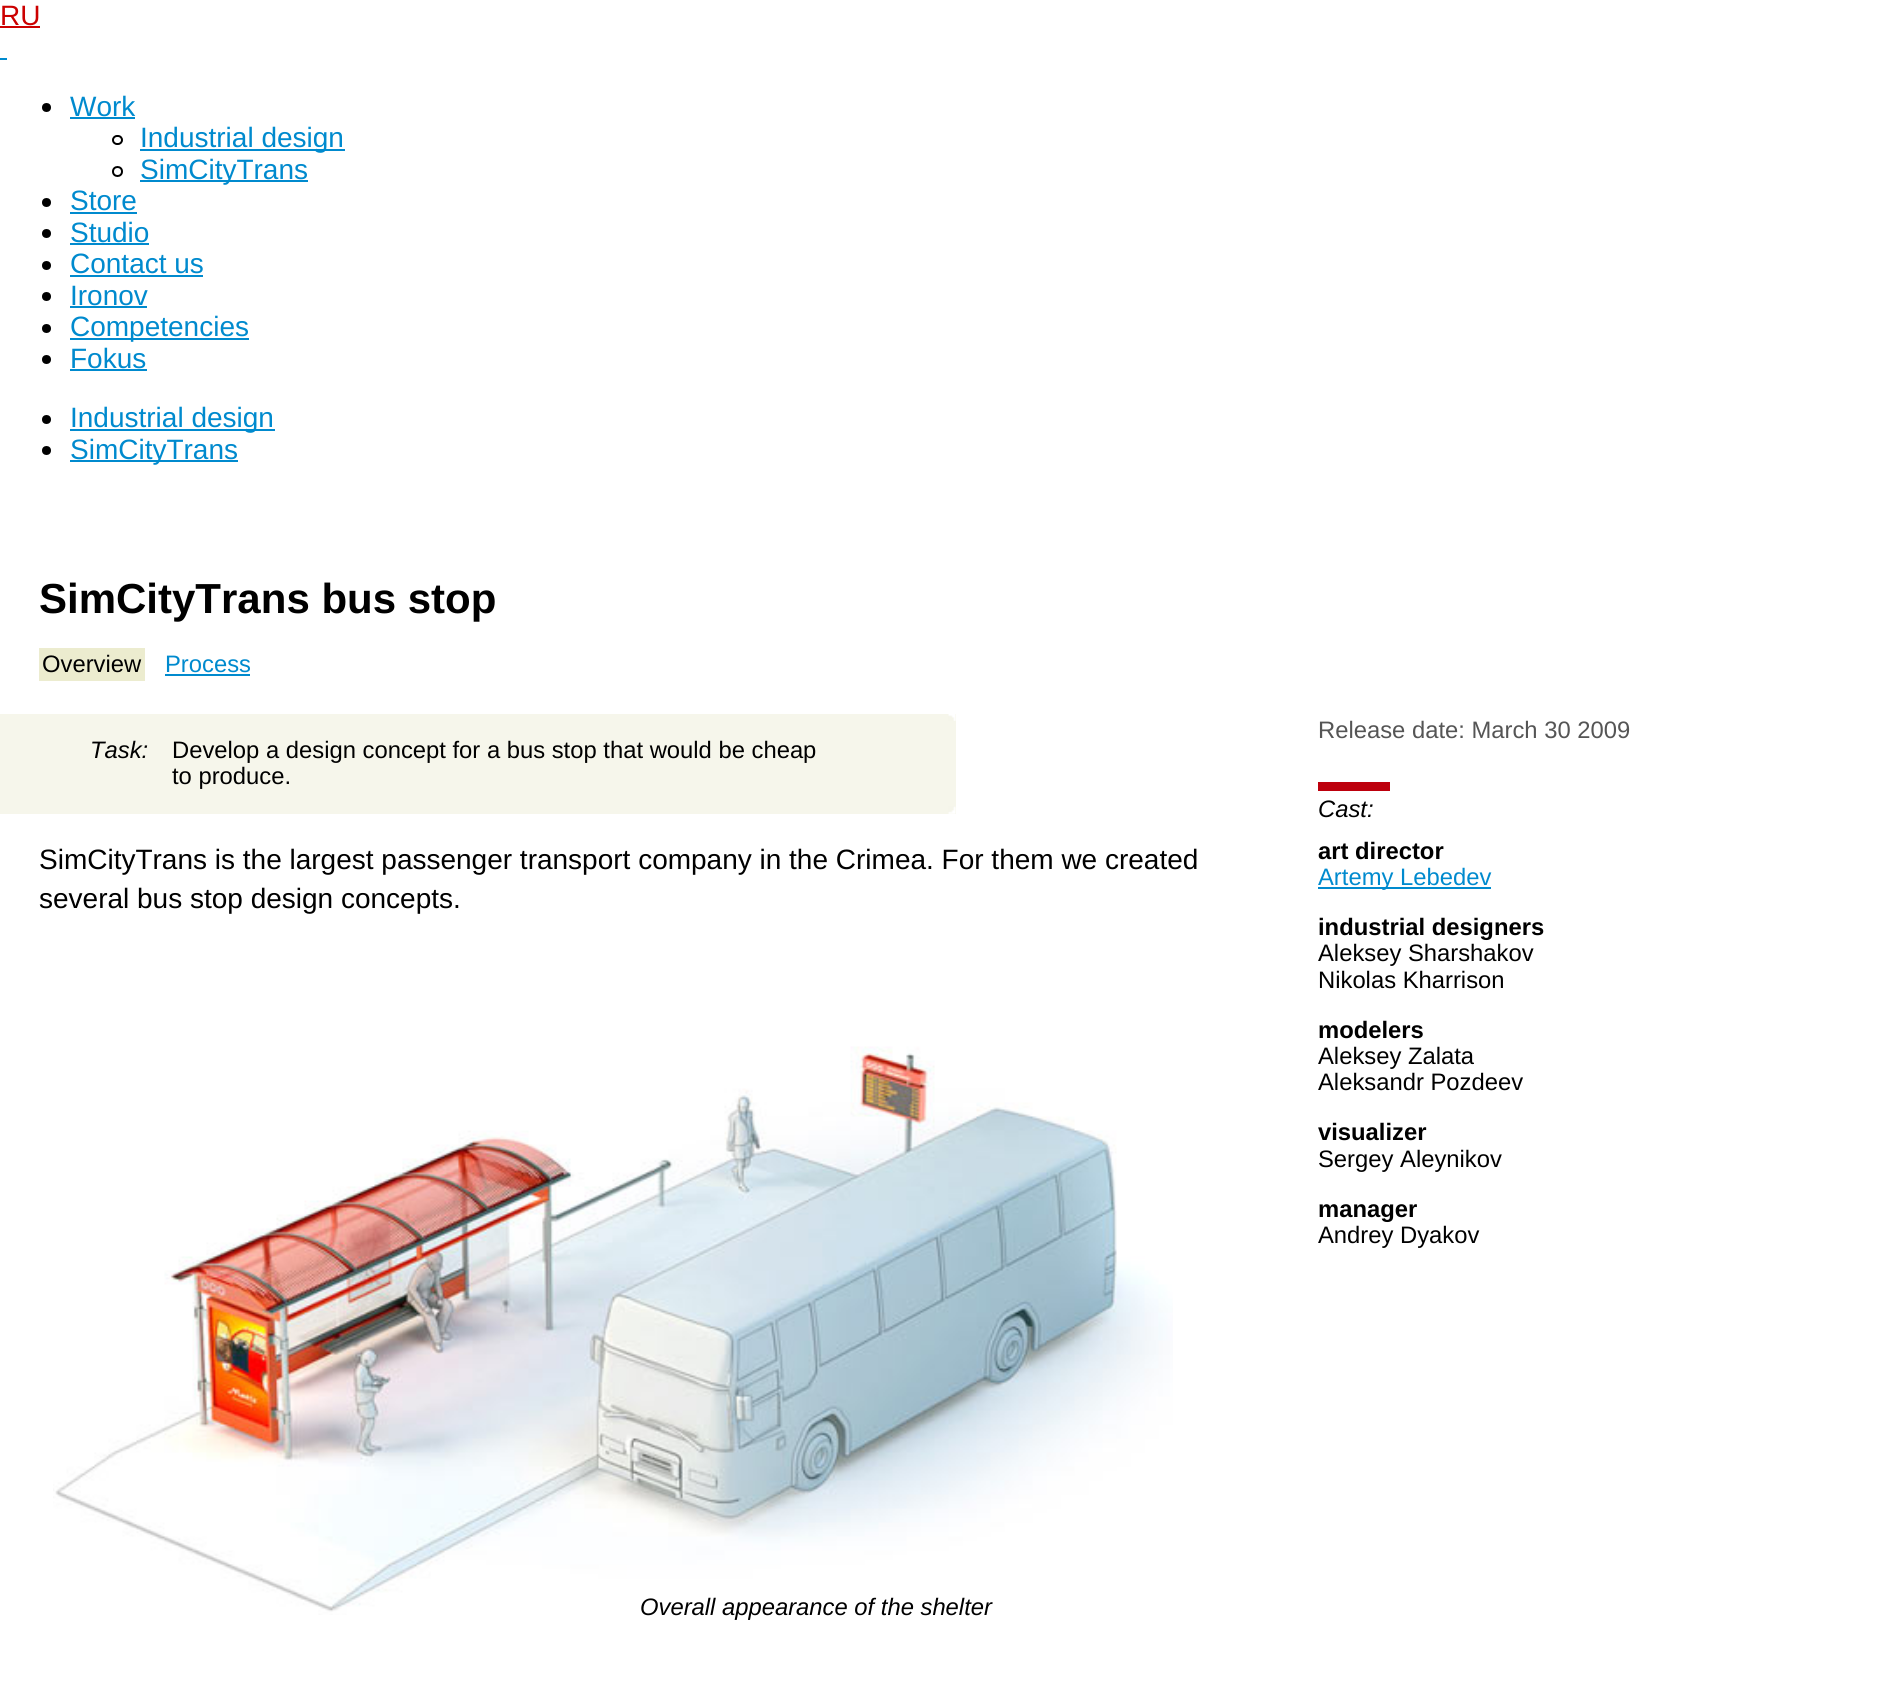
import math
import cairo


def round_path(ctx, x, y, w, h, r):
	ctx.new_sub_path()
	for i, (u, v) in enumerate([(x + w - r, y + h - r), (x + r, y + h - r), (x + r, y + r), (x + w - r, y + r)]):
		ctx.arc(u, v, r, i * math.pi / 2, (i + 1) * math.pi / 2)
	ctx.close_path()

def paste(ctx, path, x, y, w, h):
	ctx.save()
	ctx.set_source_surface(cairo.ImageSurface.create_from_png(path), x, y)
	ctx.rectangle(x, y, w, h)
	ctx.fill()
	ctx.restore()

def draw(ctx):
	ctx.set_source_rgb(1, 1, 1)
	ctx.paint()
	ctx.select_font_face('Liberation Sans')
	ctx.set_font_size(28)
	ctx.set_source_rgb(0.8, 0, 0)
	ctx.move_to(0, 25)
	ctx.show_text('RU')
	ctx.rectangle(0, 26, 40, 2)
	ctx.fill()
	ctx.set_source_rgb(0, 0.541, 0.808)
	ctx.rectangle(0, 58, 7, 2)
	ctx.fill()
	ctx.set_source_rgb(0, 0, 0)
	ctx.arc(46.5, 107.5, 4.5, 0, 2 * math.pi)
	ctx.fill()
	ctx.set_source_rgb(0, 0.541, 0.808)
	ctx.move_to(70, 116)
	ctx.show_text('Work')
	ctx.rectangle(70, 117, 65, 2)
	ctx.fill()
	round_path(ctx, 113, 136, 9, 8, 4)
	ctx.set_source_rgb(0, 0, 0)
	ctx.stroke()
	ctx.set_source_rgb(0, 0.541, 0.808)
	ctx.rectangle(140, 149, 205, 2)
	ctx.fill()
	ctx.move_to(140, 147)
	ctx.show_text('Industrial design')
	ctx.new_path()
	ctx.arc(117.5, 171.5, 4.5, 0, 2 * math.pi)
	ctx.set_source_rgb(0, 0, 0)
	ctx.stroke()
	ctx.set_source_rgb(0, 0.541, 0.808)
	ctx.rectangle(140, 180, 168, 2)
	ctx.fill()
	ctx.move_to(140, 179)
	ctx.show_text('SimCityTrans')
	ctx.set_source_rgb(0, 0, 0)
	ctx.new_path()
	ctx.arc(46.5, 202.5, 4.5, 0, 2 * math.pi)
	ctx.fill()
	ctx.set_source_rgb(0, 0.541, 0.808)
	ctx.move_to(70, 210)
	ctx.show_text('Store')
	ctx.rectangle(70, 212, 67, 2)
	ctx.fill()
	ctx.set_source_rgb(0, 0, 0)
	ctx.arc(46.5, 233.5, 4.5, 0, 2 * math.pi)
	ctx.fill()
	ctx.set_source_rgb(0, 0.541, 0.808)
	ctx.move_to(70, 242)
	ctx.show_text('Studio')
	ctx.rectangle(70, 243, 79, 2)
	ctx.fill()
	ctx.set_source_rgb(0, 0, 0)
	ctx.arc(46.5, 265.5, 4.5, 0, 2 * math.pi)
	ctx.fill()
	ctx.set_source_rgb(0, 0.541, 0.808)
	ctx.move_to(70, 273)
	ctx.show_text('Contact us')
	ctx.rectangle(70, 275, 133, 2)
	ctx.fill()
	ctx.set_source_rgb(0, 0, 0)
	ctx.arc(46.5, 296.5, 4.5, 0, 2 * math.pi)
	ctx.fill()
	ctx.set_source_rgb(0, 0.541, 0.808)
	ctx.move_to(70, 305)
	ctx.show_text('Ironov')
	ctx.rectangle(70, 306, 77, 2)
	ctx.fill()
	ctx.set_source_rgb(0, 0, 0)
	ctx.arc(46.5, 328.5, 4.5, 0, 2 * math.pi)
	ctx.fill()
	ctx.set_source_rgb(0, 0.541, 0.808)
	ctx.rectangle(70, 338, 179, 2)
	ctx.fill()
	ctx.move_to(70, 336)
	ctx.show_text('Competencies')
	ctx.set_source_rgb(0, 0, 0)
	ctx.new_path()
	ctx.arc(46.5, 359.5, 4.5, 0, 2 * math.pi)
	ctx.fill()
	ctx.set_source_rgb(0, 0.541, 0.808)
	ctx.move_to(70, 368)
	ctx.show_text('Fokus')
	ctx.rectangle(70, 369, 77, 2)
	ctx.fill()
	ctx.set_source_rgb(0, 0, 0)
	ctx.arc(46.5, 419.5, 4.5, 0, 2 * math.pi)
	ctx.fill()
	ctx.set_source_rgb(0, 0.541, 0.808)
	ctx.rectangle(70, 429, 205, 2)
	ctx.fill()
	ctx.move_to(70, 427)
	ctx.show_text('Industrial design')
	ctx.set_source_rgb(0, 0, 0)
	ctx.new_path()
	ctx.arc(46.5, 450.5, 4.5, 0, 2 * math.pi)
	ctx.fill()
	ctx.set_source_rgb(0, 0.541, 0.808)
	ctx.rectangle(70, 460, 168, 2)
	ctx.fill()
	ctx.move_to(70, 459)
	ctx.show_text('SimCityTrans')
	ctx.select_font_face('Liberation Sans', cairo.FONT_SLANT_NORMAL, cairo.FONT_WEIGHT_BOLD)
	ctx.set_font_size(42)
	ctx.set_source_rgb(0, 0, 0)
	ctx.move_to(39, 613)
	ctx.show_text('SimCityTrans bus stop')
	ctx.set_source_rgb(0.922, 0.922, 0.812)
	ctx.rectangle(39, 648, 106, 33)
	ctx.fill()
	ctx.select_font_face('Liberation Sans')
	ctx.set_font_size(23.8)
	ctx.set_source_rgb(0, 0, 0)
	ctx.move_to(42, 672)
	ctx.show_text('Overview')
	ctx.set_source_rgb(0, 0.541, 0.808)
	ctx.move_to(165, 672)
	ctx.show_text('Process')
	ctx.rectangle(165, 674, 85, 2)
	ctx.fill()
	ctx.set_source_rgb(0.961, 0.961, 0.918)
	ctx.rectangle(0, 714, 956, 100)
	ctx.fill()
	paste(ctx, 'media/1.png', 948, 714, 8, 7)
	ctx.select_font_face('Liberation Sans', cairo.FONT_SLANT_ITALIC)
	ctx.set_source_rgb(0, 0, 0)
	ctx.move_to(90, 758)
	ctx.show_text('Task:')
	ctx.select_font_face('Liberation Sans')
	ctx.move_to(172, 758)
	ctx.show_text('Develop a design concept for a bus stop that would be cheap')
	ctx.move_to(172, 784)
	ctx.show_text('to produce.')
	paste(ctx, 'media/2.png', 948, 806, 8, 8)
	ctx.set_font_size(28)
	ctx.move_to(39, 869)
	ctx.show_text('SimCityTrans is the largest passenger transport company in the Crimea. For them we created')
	ctx.move_to(39, 908)
	ctx.show_text('several bus stop design concepts.')
	paste(ctx, 'media/3.png', 53, 1046, 1120, 569)
	ctx.select_font_face('Liberation Sans', cairo.FONT_SLANT_ITALIC)
	ctx.set_font_size(23.8)
	ctx.move_to(640, 1615)
	ctx.show_text('Overall appearance of the shelter')
	ctx.select_font_face('Liberation Sans')
	ctx.set_source_rgb(0.333, 0.333, 0.333)
	ctx.move_to(1318, 738)
	ctx.show_text('Release date: March 30 2009')
	ctx.set_source_rgb(0.741, 0, 0.051)
	ctx.rectangle(1318, 782, 72, 9)
	ctx.fill()
	ctx.select_font_face('Liberation Sans', cairo.FONT_SLANT_ITALIC)
	ctx.set_source_rgb(0, 0, 0)
	ctx.move_to(1318, 817)
	ctx.show_text('Cast:')
	ctx.select_font_face('Liberation Sans', cairo.FONT_SLANT_NORMAL, cairo.FONT_WEIGHT_BOLD)
	ctx.move_to(1318, 859)
	ctx.show_text('art director')
	ctx.set_source_rgb(0, 0.541, 0.808)
	ctx.rectangle(1318, 887, 173, 2)
	ctx.fill()
	ctx.select_font_face('Liberation Sans')
	ctx.move_to(1318, 885)
	ctx.show_text('Artemy Lebedev')
	ctx.select_font_face('Liberation Sans', cairo.FONT_SLANT_NORMAL, cairo.FONT_WEIGHT_BOLD)
	ctx.set_source_rgb(0, 0, 0)
	ctx.move_to(1318, 935)
	ctx.show_text('industrial designers')
	ctx.select_font_face('Liberation Sans')
	ctx.move_to(1318, 961)
	ctx.show_text('Aleksey Sharshakov')
	ctx.move_to(1318, 988)
	ctx.show_text('Nikolas Kharrison')
	ctx.select_font_face('Liberation Sans', cairo.FONT_SLANT_NORMAL, cairo.FONT_WEIGHT_BOLD)
	ctx.move_to(1318, 1038)
	ctx.show_text('modelers')
	ctx.select_font_face('Liberation Sans')
	ctx.move_to(1318, 1064)
	ctx.show_text('Aleksey Zalata')
	ctx.move_to(1318, 1090)
	ctx.show_text('Aleksandr Pozdeev')
	ctx.select_font_face('Liberation Sans', cairo.FONT_SLANT_NORMAL, cairo.FONT_WEIGHT_BOLD)
	ctx.move_to(1318, 1140)
	ctx.show_text('visualizer')
	ctx.select_font_face('Liberation Sans')
	ctx.move_to(1318, 1167)
	ctx.show_text('Sergey Aleynikov')
	ctx.select_font_face('Liberation Sans', cairo.FONT_SLANT_NORMAL, cairo.FONT_WEIGHT_BOLD)
	ctx.move_to(1318, 1217)
	ctx.show_text('manager')
	ctx.select_font_face('Liberation Sans')
	ctx.move_to(1318, 1243)
	ctx.show_text('Andrey Dyakov')


surface = cairo.ImageSurface(cairo.FORMAT_RGB24, 1902, 1690)
ctx = cairo.Context(surface)
options = cairo.FontOptions()
options.set_hint_metrics(cairo.HINT_METRICS_OFF)
options.set_hint_style(cairo.HINT_STYLE_NONE)
ctx.set_font_options(options)
ctx.set_miter_limit(4)
draw(ctx)
surface.write_to_png('image.png')
